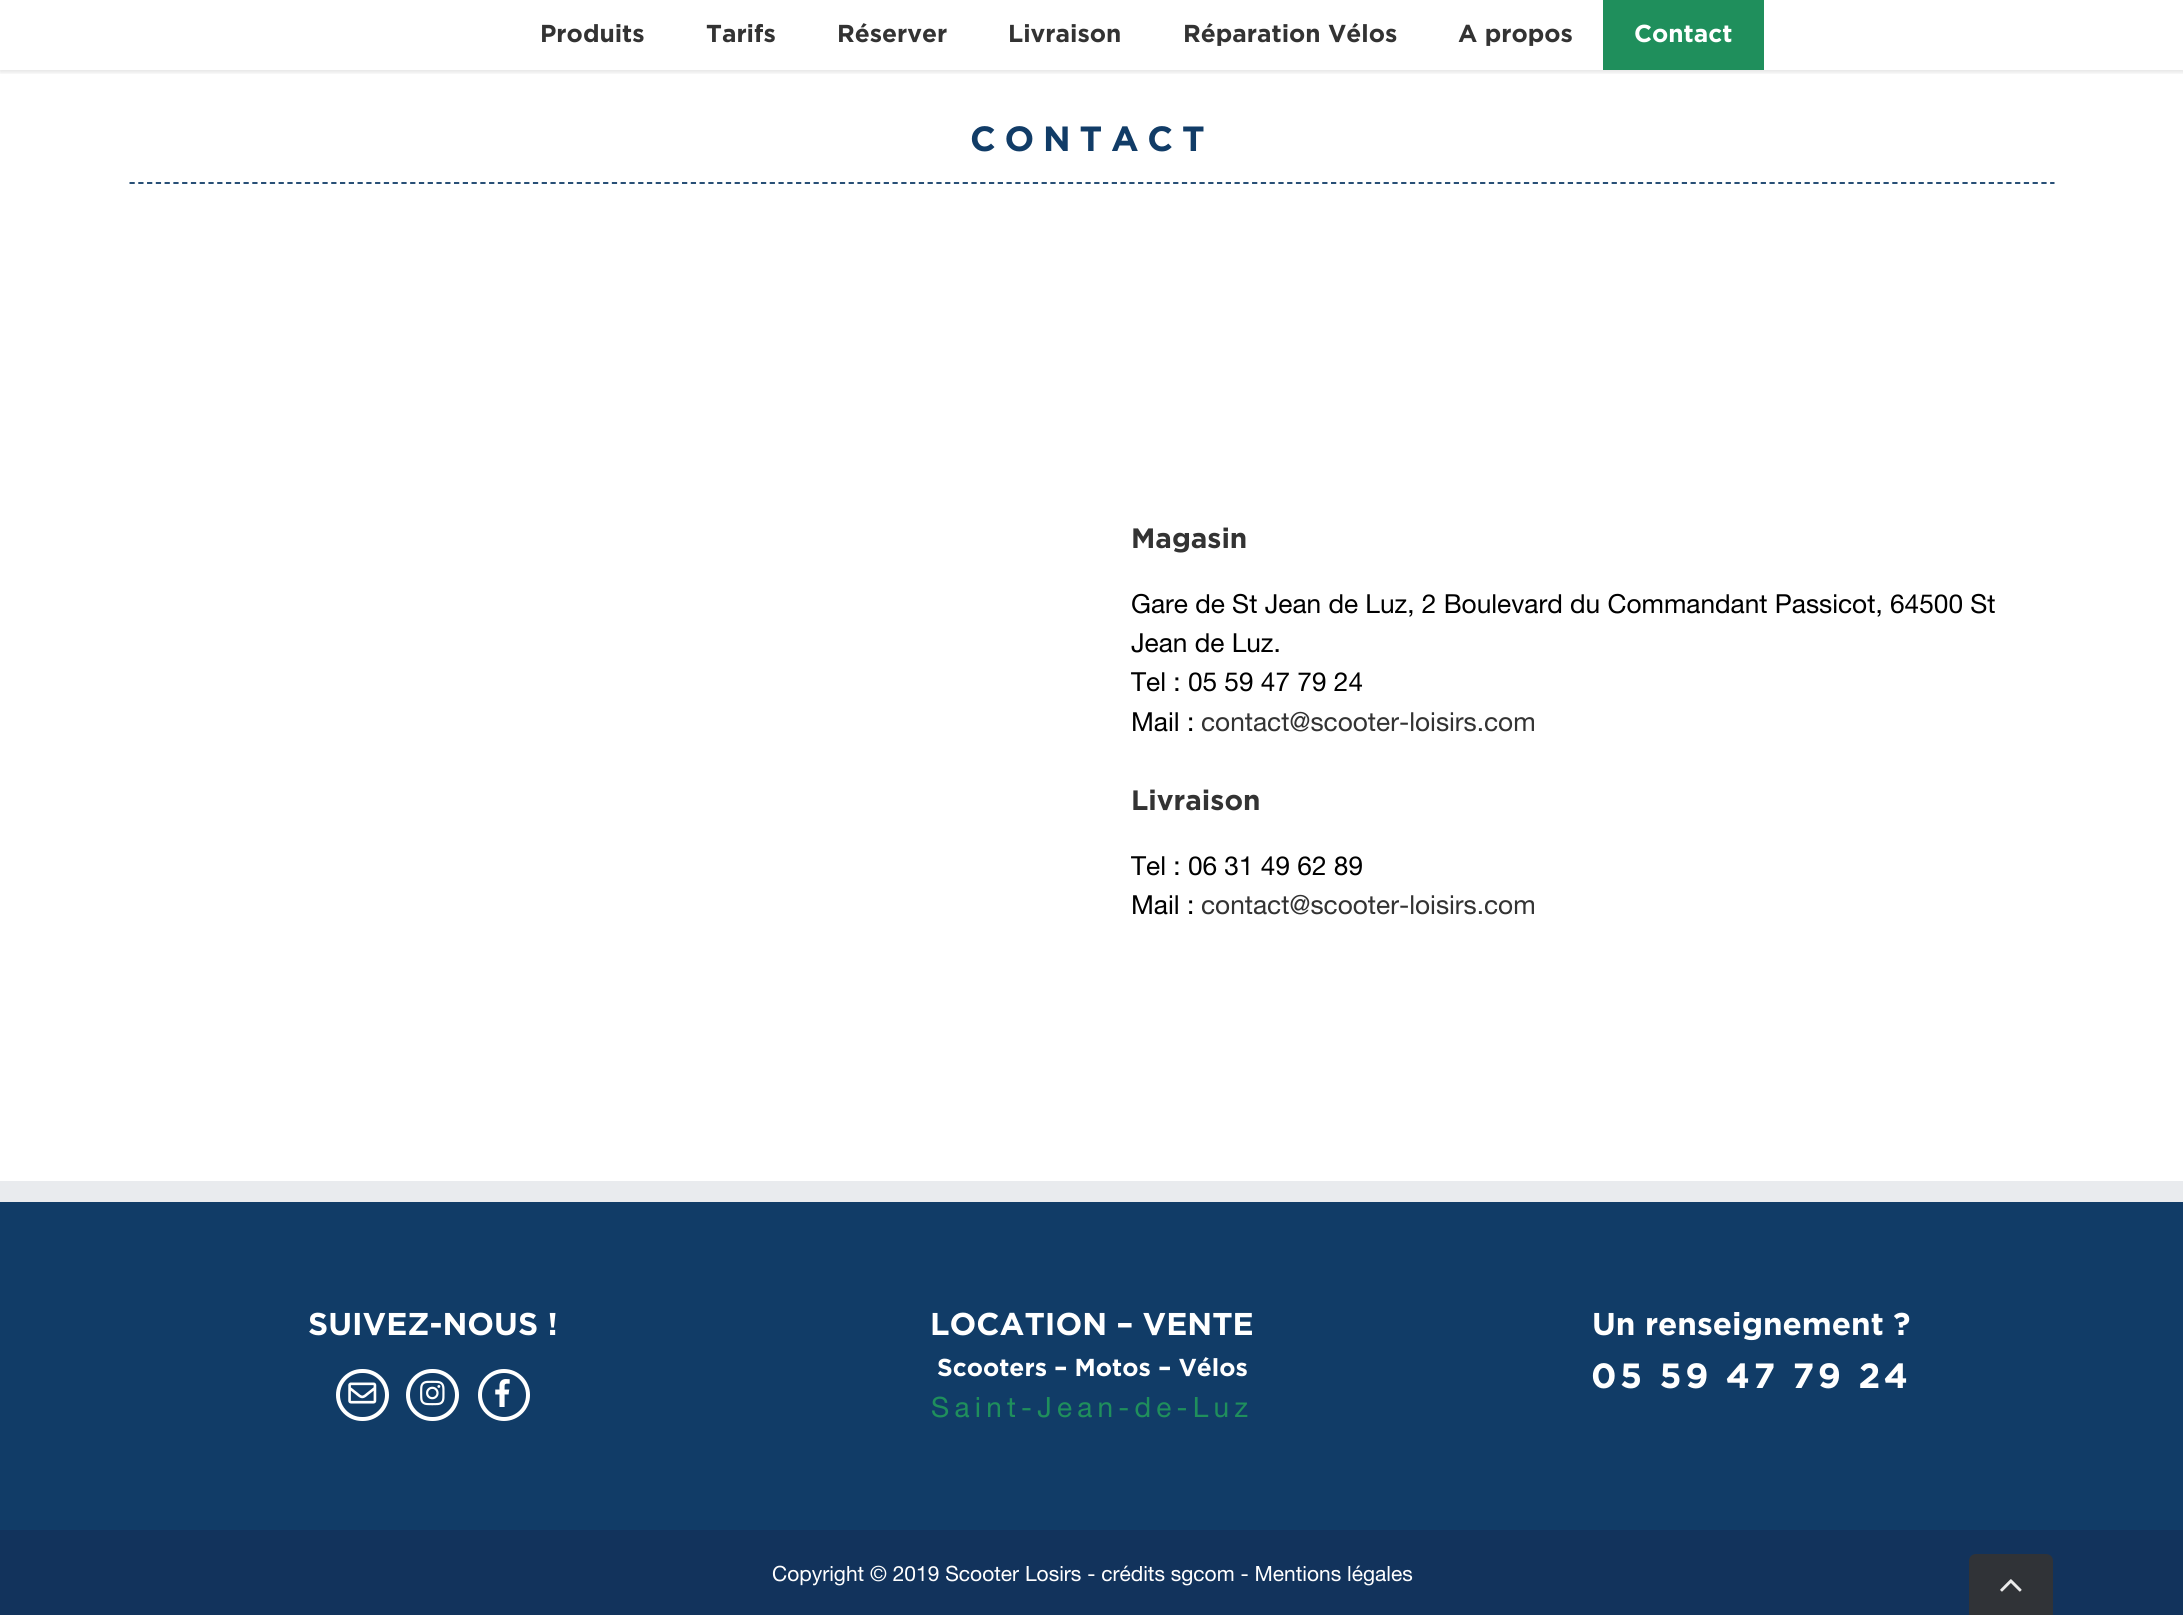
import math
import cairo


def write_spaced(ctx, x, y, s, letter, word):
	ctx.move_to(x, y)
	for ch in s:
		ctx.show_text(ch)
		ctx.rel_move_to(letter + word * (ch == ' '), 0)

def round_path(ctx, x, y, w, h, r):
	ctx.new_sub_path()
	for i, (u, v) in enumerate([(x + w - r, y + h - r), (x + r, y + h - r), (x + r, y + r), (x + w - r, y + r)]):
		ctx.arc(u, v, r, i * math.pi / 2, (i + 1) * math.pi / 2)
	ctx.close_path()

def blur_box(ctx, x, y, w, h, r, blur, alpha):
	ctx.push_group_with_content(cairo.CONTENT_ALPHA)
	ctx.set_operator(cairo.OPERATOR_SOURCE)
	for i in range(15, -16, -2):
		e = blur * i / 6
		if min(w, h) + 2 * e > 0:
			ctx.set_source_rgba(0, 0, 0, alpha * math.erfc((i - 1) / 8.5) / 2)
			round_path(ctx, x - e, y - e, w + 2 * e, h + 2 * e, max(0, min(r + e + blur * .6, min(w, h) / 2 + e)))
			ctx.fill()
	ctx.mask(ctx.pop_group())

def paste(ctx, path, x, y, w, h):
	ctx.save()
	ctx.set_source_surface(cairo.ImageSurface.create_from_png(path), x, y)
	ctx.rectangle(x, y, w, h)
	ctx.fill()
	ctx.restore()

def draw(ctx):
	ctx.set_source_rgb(1, 1, 1)
	ctx.paint()
	ctx.save()
	ctx.rectangle(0, 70, 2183, 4)
	ctx.clip()
	ctx.set_source_rgb(0, 0, 0)
	blur_box(ctx, 0, 2, 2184, 70, 0, 2.5, 0.12)
	ctx.restore()
	ctx.select_font_face('Gotham', cairo.FONT_SLANT_NORMAL, cairo.FONT_WEIGHT_BOLD)
	ctx.set_font_size(24.5)
	ctx.set_source_rgb(0.2, 0.2, 0.2)
	for x, y, s in [
		(540, 42, 'Produits'),
		(706, 42, 'Tarifs'),
		(837, 42, 'Réserver'),
		(1008, 42, 'Livraison'),
		(1183, 42, 'Réparation Vélos'),
		(1458, 42, 'A propos'),
	]:
		ctx.move_to(x, y)
		ctx.show_text(s)
	ctx.set_source_rgb(0.122, 0.561, 0.361)
	ctx.rectangle(1603, 0, 161, 70)
	ctx.fill()
	ctx.set_source_rgb(1, 1, 1)
	ctx.move_to(1634, 42)
	ctx.show_text('Contact')
	ctx.new_path()
	ctx.move_to(129.5, 183)
	ctx.line_to(2054.5, 183)
	ctx.set_source_rgb(0.067, 0.235, 0.404)
	ctx.set_line_width(1.8)
	ctx.set_dash([5.25, 3.52])
	ctx.stroke()
	ctx.set_font_size(35)
	write_spaced(ctx, 970, 151, 'CONTACT', 8.75, 0)
	ctx.set_font_size(28)
	ctx.set_source_rgb(0.2, 0.2, 0.2)
	ctx.move_to(1131, 548)
	ctx.show_text('Magasin')
	ctx.select_font_face('Helvetica Neue')
	ctx.set_font_size(26.25)
	ctx.set_source_rgb(0, 0, 0)
	for x, y, s in [
		(1131, 613, 'Gare de St Jean de Luz, 2 Boulevard du Commandant Passicot, 64500 St'),
		(1131, 652, 'Jean de Luz.'),
		(1131, 691, 'Tel : 05 59 47 79 24'),
		(1131, 731, 'Mail :'),
	]:
		ctx.move_to(x, y)
		ctx.show_text(s)
	ctx.set_source_rgb(0.2, 0.2, 0.2)
	ctx.move_to(1201, 731)
	ctx.show_text('contact@scooter-loisirs.com')
	ctx.select_font_face('Gotham', cairo.FONT_SLANT_NORMAL, cairo.FONT_WEIGHT_BOLD)
	ctx.set_font_size(28)
	ctx.move_to(1131, 810)
	ctx.show_text('Livraison')
	ctx.select_font_face('Helvetica Neue')
	ctx.set_font_size(26.25)
	ctx.set_source_rgb(0, 0, 0)
	ctx.move_to(1131, 875)
	ctx.show_text('Tel : 06 31 49 62 89')
	ctx.move_to(1131, 914)
	ctx.show_text('Mail :')
	ctx.set_source_rgb(0.2, 0.2, 0.2)
	ctx.move_to(1201, 914)
	ctx.show_text('contact@scooter-loisirs.com')
	ctx.set_source_rgb(0.067, 0.235, 0.404)
	ctx.rectangle(0, 1202, 2183, 328)
	ctx.fill()
	ctx.set_source_rgb(0.914, 0.918, 0.933)
	ctx.rectangle(0, 1181, 2183, 21)
	ctx.fill()
	ctx.select_font_face('Gotham', cairo.FONT_SLANT_NORMAL, cairo.FONT_WEIGHT_BOLD)
	ctx.set_font_size(31.5)
	ctx.set_source_rgb(1, 1, 1)
	ctx.move_to(308, 1335)
	ctx.show_text('SUIVEZ-NOUS !')
	round_path(ctx, 338, 1371, 49, 48, 24)
	ctx.set_line_width(4)
	ctx.set_dash([])
	ctx.stroke()
	paste(ctx, 'media/1.png', 348, 1382, 29, 22)
	round_path(ctx, 408, 1371, 49, 48, 24)
	ctx.stroke()
	paste(ctx, 'media/2.png', 420, 1380, 25, 26)
	ctx.arc(504, 1395, 24, 0, 2 * math.pi)
	ctx.stroke()
	paste(ctx, 'media/3.png', 495, 1379, 15, 28)
	ctx.move_to(930, 1335)
	ctx.show_text('LOCATION – VENTE')
	ctx.set_font_size(24.5)
	ctx.move_to(937, 1376)
	ctx.show_text('Scooters – Motos – Vélos')
	ctx.select_font_face('Helvetica Neue')
	ctx.set_font_size(28)
	ctx.set_source_rgb(0.122, 0.561, 0.361)
	write_spaced(ctx, 931, 1417, 'Saint-Jean-de-Luz', 5.25, 0)
	ctx.select_font_face('Gotham', cairo.FONT_SLANT_NORMAL, cairo.FONT_WEIGHT_BOLD)
	ctx.set_font_size(31.5)
	ctx.set_source_rgb(1, 1, 1)
	ctx.move_to(1592, 1335)
	ctx.show_text('Un renseignement ?')
	ctx.set_font_size(35)
	write_spaced(ctx, 1591, 1388, '05 59 47 79 24', 3.5, 0)
	ctx.set_source_rgb(0.071, 0.2, 0.361)
	ctx.rectangle(0, 1530, 2183, 85)
	ctx.fill()
	ctx.select_font_face('Helvetica Neue')
	ctx.set_font_size(21)
	ctx.set_source_rgb(1, 1, 1)
	ctx.move_to(772, 1581)
	ctx.show_text('Copyright © 2019 Scooter Losirs - crédits sgcom - Mentions légales')
	ctx.set_source_rgb(0.188, 0.2, 0.216)
	ctx.new_path()
	ctx.move_to(1976, 1554)
	ctx.line_to(2046, 1554)
	ctx.curve_to(2050, 1554, 2053, 1557, 2053, 1561)
	ctx.line_to(2053, 1615)
	ctx.line_to(1969, 1615)
	ctx.line_to(1969, 1561)
	ctx.curve_to(1969, 1557, 1972, 1554, 1976, 1554)
	ctx.close_path()
	ctx.fill()
	paste(ctx, 'media/4.png', 2000, 1579, 22, 13)


surface = cairo.ImageSurface(cairo.FORMAT_RGB24, 2183, 1615)
ctx = cairo.Context(surface)
options = cairo.FontOptions()
options.set_hint_metrics(cairo.HINT_METRICS_OFF)
options.set_hint_style(cairo.HINT_STYLE_NONE)
ctx.set_font_options(options)
ctx.set_miter_limit(4)
draw(ctx)
surface.write_to_png('image.png')
